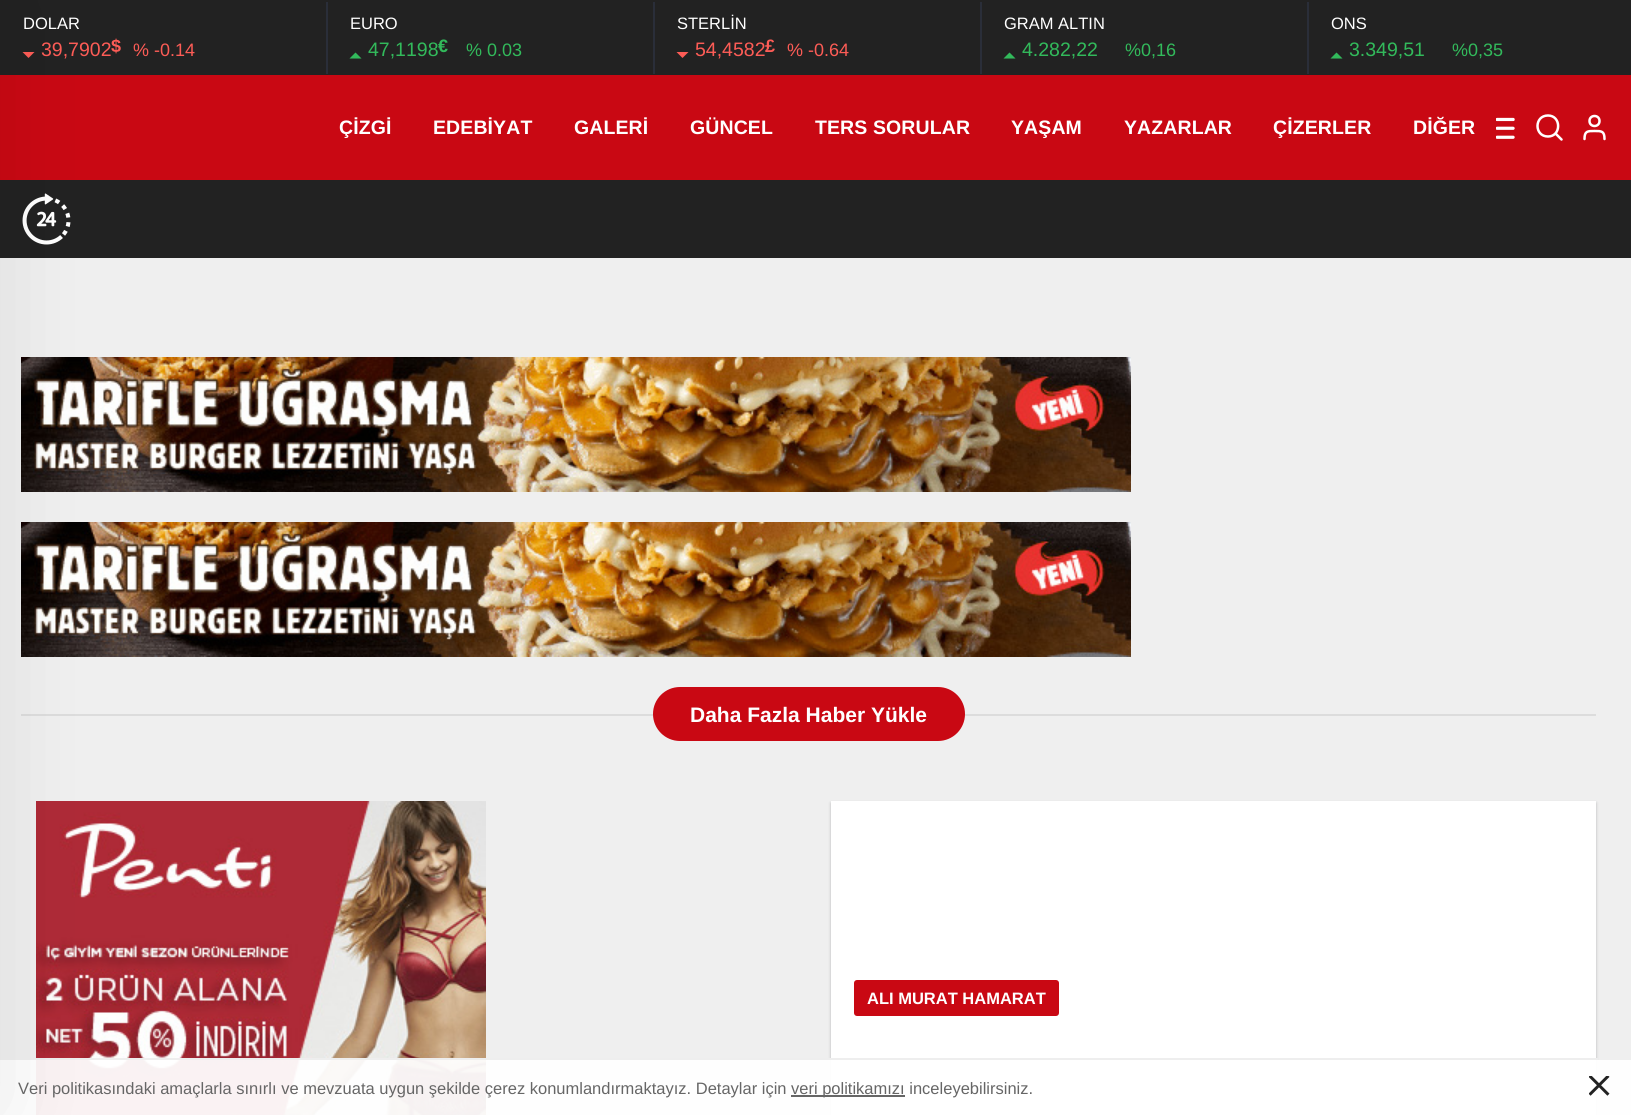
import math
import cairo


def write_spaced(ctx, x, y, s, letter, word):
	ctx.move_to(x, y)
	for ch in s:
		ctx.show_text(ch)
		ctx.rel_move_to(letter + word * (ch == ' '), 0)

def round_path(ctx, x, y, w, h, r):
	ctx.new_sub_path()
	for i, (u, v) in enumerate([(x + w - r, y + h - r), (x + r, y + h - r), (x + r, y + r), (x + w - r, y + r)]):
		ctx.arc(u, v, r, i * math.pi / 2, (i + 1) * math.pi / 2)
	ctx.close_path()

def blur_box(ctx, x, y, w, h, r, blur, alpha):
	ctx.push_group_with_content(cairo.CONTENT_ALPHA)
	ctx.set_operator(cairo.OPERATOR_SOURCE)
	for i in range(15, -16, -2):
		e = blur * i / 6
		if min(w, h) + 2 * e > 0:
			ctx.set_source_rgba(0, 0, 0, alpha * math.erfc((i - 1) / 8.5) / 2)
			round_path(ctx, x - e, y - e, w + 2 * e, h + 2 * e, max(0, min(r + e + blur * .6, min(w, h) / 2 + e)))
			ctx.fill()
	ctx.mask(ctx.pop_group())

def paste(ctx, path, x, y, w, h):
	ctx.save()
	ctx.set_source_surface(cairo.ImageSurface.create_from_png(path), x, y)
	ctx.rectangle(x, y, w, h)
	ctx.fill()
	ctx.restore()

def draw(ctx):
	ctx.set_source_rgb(0.937, 0.937, 0.937)
	ctx.paint()
	ctx.set_source_rgb(0.133, 0.133, 0.133)
	ctx.rectangle(0, 0, 1631, 75)
	ctx.fill()
	ctx.set_source_rgb(0.992, 0.361, 0.337)
	ctx.new_path()
	ctx.move_to(22.5, 52)
	ctx.line_to(34.5, 52)
	ctx.line_to(28.5, 58)
	ctx.close_path()
	ctx.fill()
	ctx.set_source_rgb(0.788, 0.035, 0.078)
	ctx.rectangle(0, 75, 1631, 105)
	ctx.fill()
	ctx.set_source_rgb(0.133, 0.133, 0.133)
	ctx.rectangle(0, 180, 1631, 78)
	ctx.fill()
	paste(ctx, 'media/2.png', 22, 193, 49, 52)
	paste(ctx, 'media/3.png', 21, 357, 1110, 135)
	paste(ctx, 'media/3.png', 21, 522, 1110, 135)
	ctx.set_source_rgb(0.863, 0.863, 0.863)
	ctx.rectangle(21, 714, 1575, 2)
	ctx.fill()
	paste(ctx, 'media/4.png', 36, 801, 450, 314)
	ctx.set_source_rgb(0.067, 0.082, 0.098)
	blur_box(ctx, 831, 803, 765, 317, 0, 1.5, 0.27)
	ctx.set_source_rgb(1, 1, 1)
	ctx.rectangle(831, 801, 765, 314)
	ctx.fill()
	ctx.set_source_rgba(1, 1, 1, 0.94)
	ctx.rectangle(0, 1060, 1631, 55)
	ctx.fill()
	ctx.set_source_rgb(0.933, 0.933, 0.933)
	ctx.rectangle(36, 1058, 1562, 2)
	ctx.fill()
	ctx.set_source_rgb(0, 0, 0)
	blur_box(ctx, -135, 8, 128, 1101, 0, 45, 0.1)
	ctx.select_font_face('Liberation Sans')
	ctx.set_font_size(16.5)
	ctx.set_source_rgb(1, 1, 1)
	ctx.move_to(23, 29)
	ctx.show_text('DOLAR')
	ctx.set_font_size(19.5)
	ctx.set_source_rgb(0.992, 0.361, 0.337)
	ctx.move_to(41, 56)
	ctx.show_text('39,7902')
	ctx.select_font_face('Liberation Sans', cairo.FONT_SLANT_NORMAL, cairo.FONT_WEIGHT_BOLD)
	ctx.set_font_size(18)
	ctx.move_to(111, 52)
	ctx.show_text('$')
	ctx.select_font_face('Liberation Sans')
	ctx.move_to(133, 56)
	ctx.show_text('% -0.14')
	ctx.set_source_rgb(0.165, 0.18, 0.224)
	ctx.rectangle(326, 2, 2, 72)
	ctx.fill()
	ctx.set_font_size(16.5)
	ctx.set_source_rgb(1, 1, 1)
	ctx.move_to(350, 29)
	ctx.show_text('EURO')
	ctx.set_source_rgb(0.196, 0.729, 0.357)
	ctx.new_path()
	ctx.move_to(361.5, 58.5)
	ctx.line_to(349.5, 58.5)
	ctx.line_to(355.5, 52.5)
	ctx.close_path()
	ctx.fill()
	ctx.set_font_size(19.5)
	ctx.move_to(368, 56)
	ctx.show_text('47,1198')
	ctx.select_font_face('Liberation Sans', cairo.FONT_SLANT_NORMAL, cairo.FONT_WEIGHT_BOLD)
	ctx.set_font_size(18)
	ctx.move_to(438, 52)
	ctx.show_text('€')
	ctx.select_font_face('Liberation Sans')
	ctx.move_to(466, 56)
	ctx.show_text('% 0.03')
	ctx.set_source_rgb(0.165, 0.18, 0.224)
	ctx.rectangle(653, 2, 2, 72)
	ctx.fill()
	ctx.set_font_size(16.5)
	ctx.set_source_rgb(1, 1, 1)
	ctx.move_to(677, 29)
	ctx.show_text('STERLİN')
	ctx.set_source_rgb(0.992, 0.361, 0.337)
	ctx.new_path()
	ctx.move_to(676.5, 52)
	ctx.line_to(688.5, 52)
	ctx.line_to(682.5, 58)
	ctx.close_path()
	ctx.fill()
	ctx.set_font_size(19.5)
	ctx.move_to(695, 56)
	ctx.show_text('54,4582')
	ctx.select_font_face('Liberation Sans', cairo.FONT_SLANT_NORMAL, cairo.FONT_WEIGHT_BOLD)
	ctx.set_font_size(18)
	ctx.move_to(765, 52)
	ctx.show_text('£')
	ctx.select_font_face('Liberation Sans')
	ctx.move_to(787, 56)
	ctx.show_text('% -0.64')
	ctx.set_source_rgb(0.165, 0.18, 0.224)
	ctx.rectangle(980, 2, 2, 72)
	ctx.fill()
	ctx.set_font_size(16.5)
	ctx.set_source_rgb(1, 1, 1)
	ctx.move_to(1004, 29)
	ctx.show_text('GRAM ALTIN')
	ctx.set_source_rgb(0.196, 0.729, 0.357)
	ctx.new_path()
	ctx.move_to(1015.5, 58.5)
	ctx.line_to(1003.5, 58.5)
	ctx.line_to(1009.5, 52.5)
	ctx.close_path()
	ctx.fill()
	ctx.set_font_size(19.5)
	ctx.move_to(1022, 56)
	ctx.show_text('4.282,22')
	ctx.set_font_size(18)
	ctx.move_to(1125, 56)
	ctx.show_text('%0,16')
	ctx.set_source_rgb(0.165, 0.18, 0.224)
	ctx.rectangle(1307, 2, 2, 72)
	ctx.fill()
	ctx.set_font_size(16.5)
	ctx.set_source_rgb(1, 1, 1)
	ctx.move_to(1331, 29)
	ctx.show_text('ONS')
	ctx.set_source_rgb(0.196, 0.729, 0.357)
	ctx.new_path()
	ctx.move_to(1342.5, 58.5)
	ctx.line_to(1330.5, 58.5)
	ctx.line_to(1336.5, 52.5)
	ctx.close_path()
	ctx.fill()
	ctx.set_font_size(19.5)
	ctx.move_to(1349, 56)
	ctx.show_text('3.349,51')
	ctx.set_font_size(18)
	ctx.move_to(1452, 56)
	ctx.show_text('%0,35')
	ctx.select_font_face('Liberation Sans', cairo.FONT_SLANT_NORMAL, cairo.FONT_WEIGHT_BOLD)
	ctx.set_font_size(19.5)
	ctx.set_source_rgb(1, 1, 1)
	for x, y, s in [
		(339, 134, 'ÇİZGİ'),
		(433, 134, 'EDEBİYAT'),
		(574, 134, 'GALERİ'),
		(690, 134, 'GÜNCEL'),
		(815, 134, 'TERS SORULAR'),
		(1011, 134, 'YAŞAM'),
		(1124, 134, 'YAZARLAR'),
		(1273, 134, 'ÇİZERLER'),
		(1413, 134, 'DİĞER'),
	]:
		write_spaced(ctx, x, y, s, 0.1, 0)
	paste(ctx, 'media/1.png', 1496, 117, 19, 22)
	ctx.new_path()
	ctx.move_to(1548, 136.5)
	ctx.curve_to(1561.5, 136.5, 1561.5, 115.5, 1548, 115.5)
	ctx.curve_to(1534, 115.5, 1534, 136.5, 1548, 136.5)
	ctx.close_path()
	ctx.move_to(1555.5, 133.5)
	ctx.line_to(1561.5, 139.5)
	ctx.set_line_width(2.5)
	ctx.set_line_cap(cairo.LINE_CAP_ROUND)
	ctx.set_line_join(cairo.LINE_JOIN_ROUND)
	ctx.stroke()
	ctx.new_path()
	ctx.move_to(1604.5, 139)
	ctx.curve_to(1604.5, 131, 1601.5, 131, 1594.5, 131)
	ctx.curve_to(1587.5, 131, 1584.5, 131, 1584.5, 139)
	ctx.stroke()
	ctx.arc(1594.5, 121, 5, 0, 2 * math.pi)
	ctx.set_line_cap(cairo.LINE_CAP_BUTT)
	ctx.set_line_join(cairo.LINE_JOIN_MITER)
	ctx.stroke()
	ctx.set_source_rgb(0.788, 0.035, 0.078)
	round_path(ctx, 653, 687, 312, 54, 27)
	ctx.fill()
	ctx.set_font_size(21)
	ctx.set_source_rgb(1, 1, 1)
	ctx.move_to(690, 722)
	ctx.show_text('Daha Fazla Haber Yükle')
	ctx.set_source_rgb(0.788, 0.035, 0.078)
	round_path(ctx, 854, 980, 205, 36, 3)
	ctx.fill()
	ctx.set_font_size(16.5)
	ctx.set_source_rgb(1, 1, 1)
	ctx.move_to(867, 1004)
	ctx.show_text('ALI MURAT HAMARAT')
	ctx.select_font_face('Liberation Sans')
	ctx.set_source_rgb(0.4, 0.4, 0.4)
	ctx.move_to(18, 1094)
	ctx.show_text('Veri politikasındaki amaçlarla sınırlı ve mevzuata uygun şekilde çerez konumlandırmaktayız. Detaylar için')
	ctx.rectangle(791, 1095, 114, 2)
	ctx.fill()
	ctx.move_to(791, 1094)
	ctx.show_text('veri politikamızı inceleyebilirsiniz.')
	paste(ctx, 'media/5.png', 1589, 1076, 21, 20)


surface = cairo.ImageSurface(cairo.FORMAT_RGB24, 1631, 1115)
ctx = cairo.Context(surface)
options = cairo.FontOptions()
options.set_hint_metrics(cairo.HINT_METRICS_OFF)
options.set_hint_style(cairo.HINT_STYLE_NONE)
ctx.set_font_options(options)
ctx.set_miter_limit(4)
draw(ctx)
surface.write_to_png('image.png')
